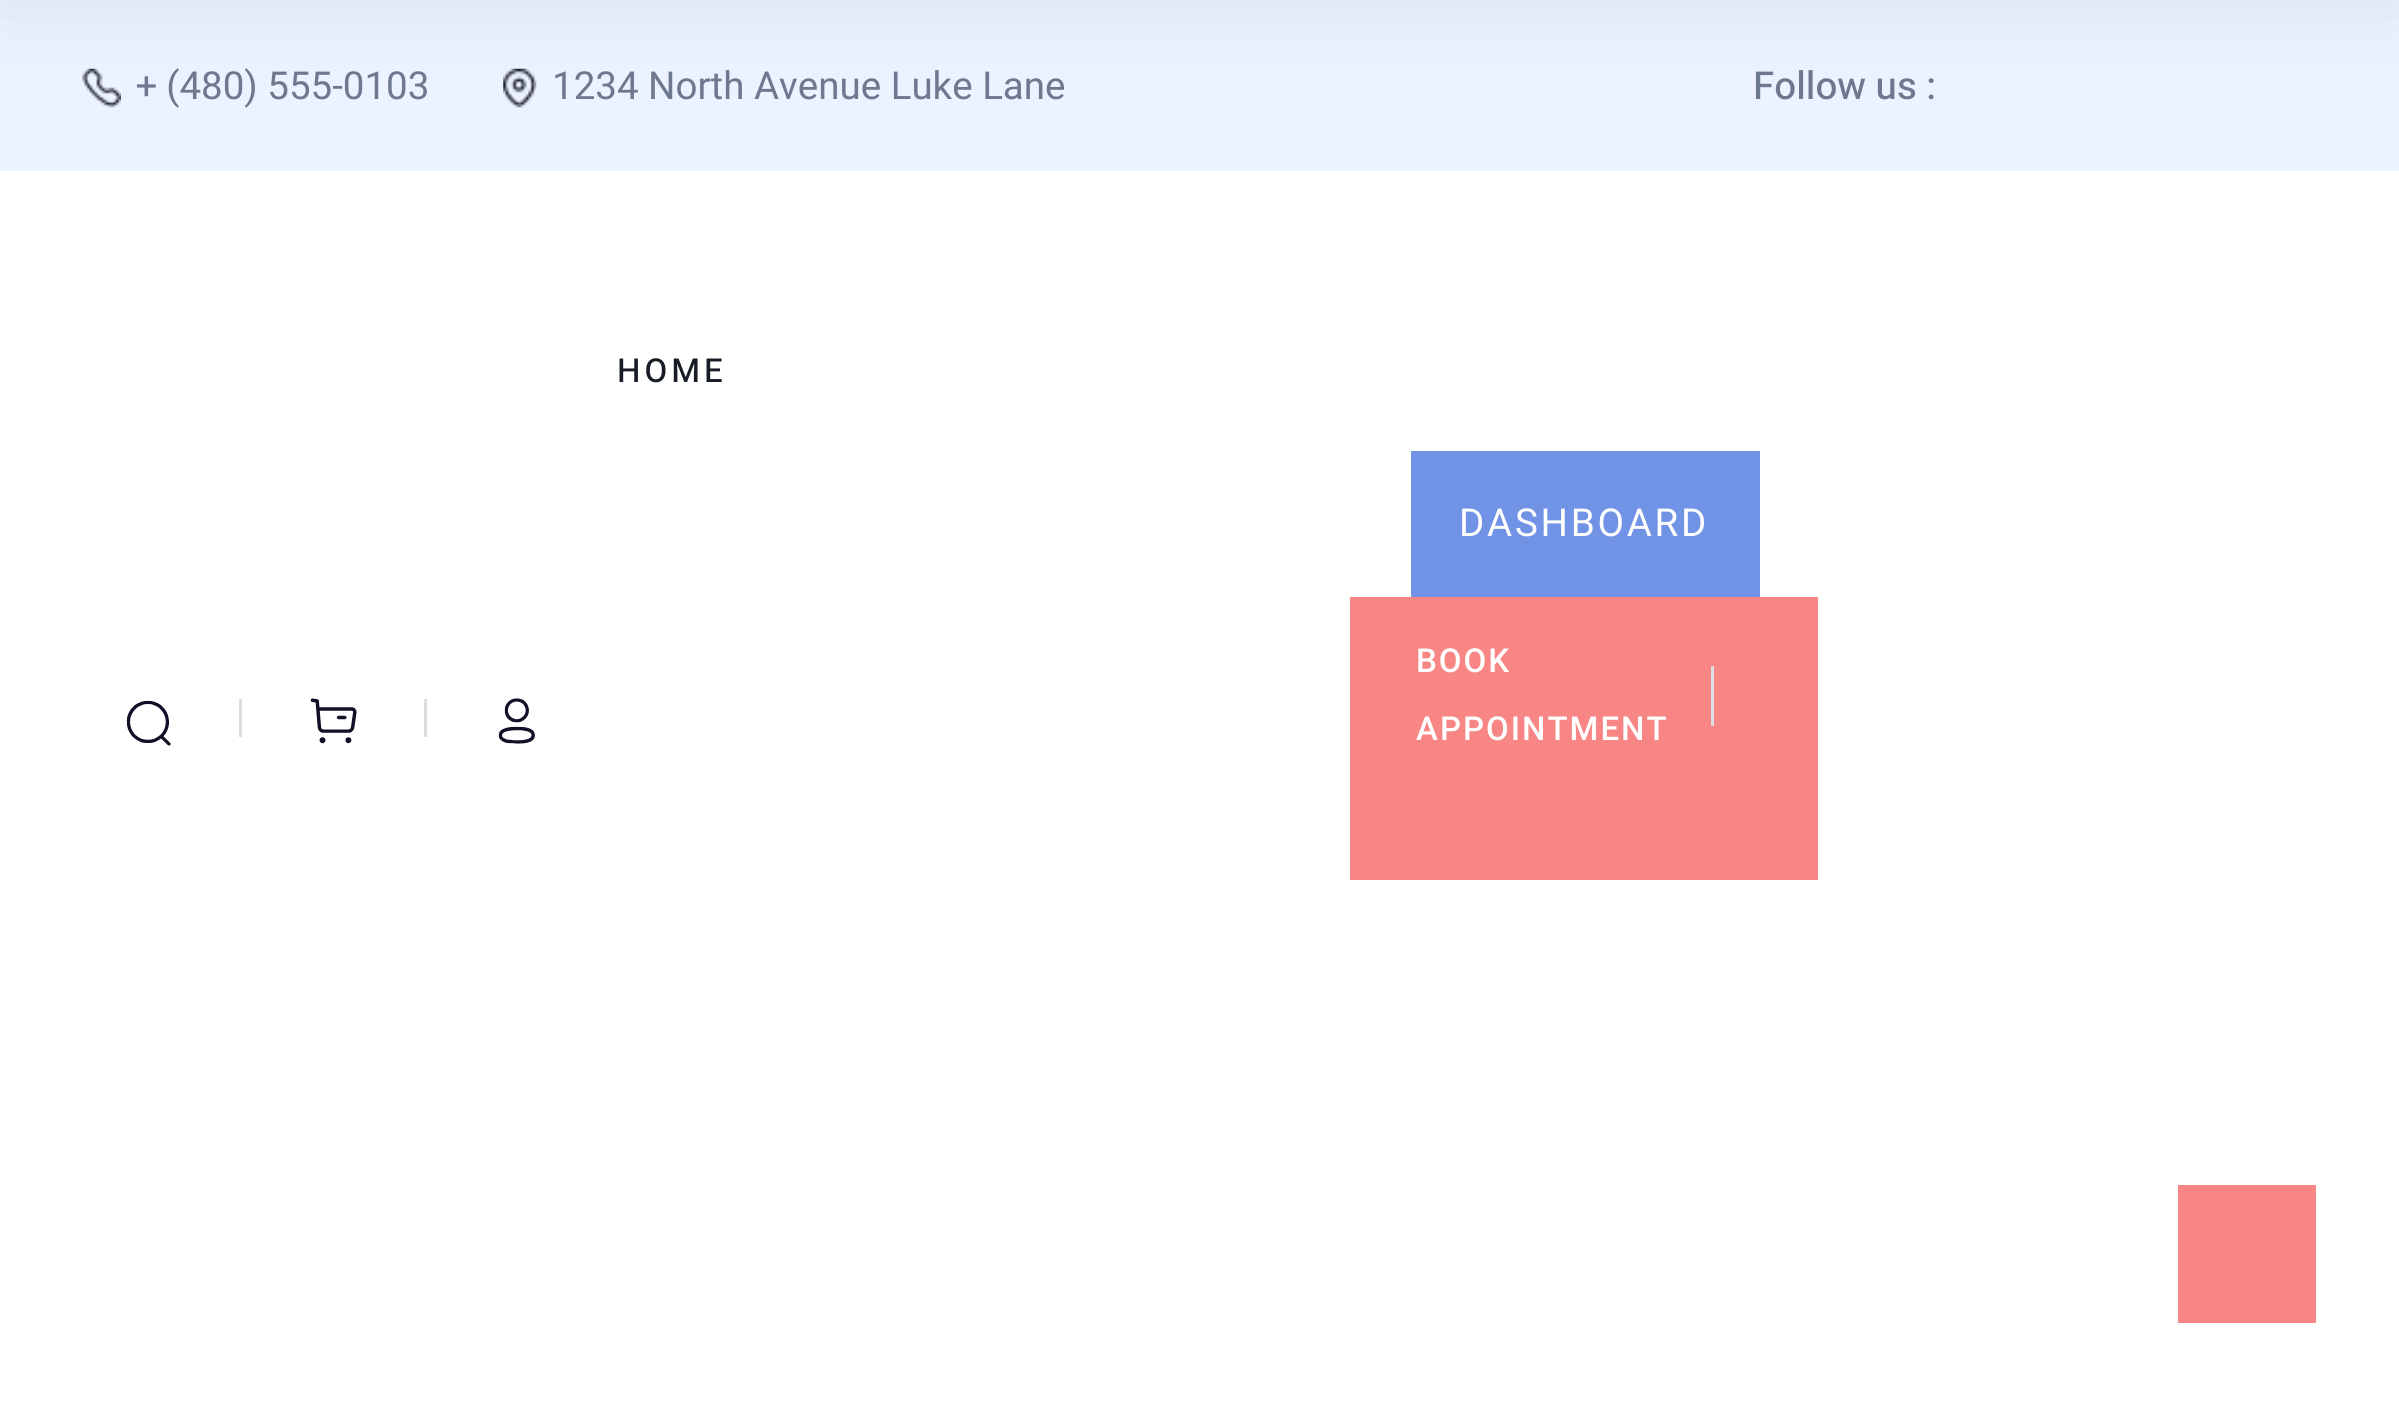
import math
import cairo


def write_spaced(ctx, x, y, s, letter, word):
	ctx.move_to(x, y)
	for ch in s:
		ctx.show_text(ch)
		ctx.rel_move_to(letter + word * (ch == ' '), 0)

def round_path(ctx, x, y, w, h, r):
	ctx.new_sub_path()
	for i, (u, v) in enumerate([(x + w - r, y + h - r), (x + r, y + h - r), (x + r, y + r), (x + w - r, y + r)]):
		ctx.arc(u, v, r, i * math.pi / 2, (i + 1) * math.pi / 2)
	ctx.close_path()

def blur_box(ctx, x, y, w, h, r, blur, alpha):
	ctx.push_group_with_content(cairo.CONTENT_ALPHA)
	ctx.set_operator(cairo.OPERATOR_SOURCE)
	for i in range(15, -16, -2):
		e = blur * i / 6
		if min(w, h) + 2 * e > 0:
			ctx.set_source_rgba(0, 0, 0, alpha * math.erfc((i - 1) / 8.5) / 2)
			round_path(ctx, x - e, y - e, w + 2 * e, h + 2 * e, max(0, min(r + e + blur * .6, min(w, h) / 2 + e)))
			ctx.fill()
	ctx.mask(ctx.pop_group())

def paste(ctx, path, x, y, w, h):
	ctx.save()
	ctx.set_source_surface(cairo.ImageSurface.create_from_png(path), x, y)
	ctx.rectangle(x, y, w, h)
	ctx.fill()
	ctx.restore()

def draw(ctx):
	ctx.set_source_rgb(1, 1, 1)
	ctx.paint()
	ctx.set_source_rgb(0.925, 0.949, 1)
	ctx.rectangle(0, 0, 2399, 171)
	ctx.fill()
	paste(ctx, 'media/1.png', 82, 68, 39, 40)
	ctx.select_font_face('Heebo')
	ctx.set_font_size(38.5)
	ctx.set_source_rgb(0.431, 0.475, 0.565)
	ctx.move_to(136, 99)
	ctx.show_text('+ (480) 555-0103')
	paste(ctx, 'media/2.png', 503, 68, 34, 40)
	ctx.move_to(552, 99)
	ctx.show_text('1234 North Avenue Luke Lane')
	ctx.select_font_face('Heebo Medium')
	ctx.move_to(1753, 99)
	ctx.show_text('Follow us :')
	ctx.set_source_rgb(0.141, 0.149, 0.169)
	blur_box(ctx, 0, -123, 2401, 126, 0, 41, 0.1)
	ctx.set_font_size(33)
	ctx.set_source_rgb(0.09, 0.11, 0.149)
	write_spaced(ctx, 617, 382, 'HOME', 4, 0)
	paste(ctx, 'media/3.png', 126, 700, 45, 46)
	ctx.set_source_rgb(0.871, 0.871, 0.871)
	ctx.rectangle(239, 699, 3, 38)
	ctx.fill()
	paste(ctx, 'media/4.png', 310, 698, 47, 46)
	ctx.rectangle(424, 699, 3, 38)
	ctx.fill()
	paste(ctx, 'media/5.png', 498, 698, 37, 46)
	ctx.set_source_rgb(0.439, 0.576, 0.898)
	ctx.rectangle(1411, 451, 349, 146)
	ctx.fill()
	ctx.select_font_face('Roboto')
	ctx.set_font_size(38.5)
	ctx.set_source_rgb(1, 1, 1)
	write_spaced(ctx, 1459, 536, 'DASHBOARD', 2.75, 0)
	ctx.set_source_rgb(0.965, 0.525, 0.522)
	ctx.rectangle(1350, 597, 468, 283)
	ctx.fill()
	ctx.select_font_face('Roboto Medium')
	ctx.set_font_size(33)
	ctx.set_source_rgb(1, 1, 1)
	write_spaced(ctx, 1416, 672, 'BOOK', 2, 0)
	ctx.set_source_rgb(0.859, 0.875, 0.906)
	ctx.rectangle(1711, 666, 3, 60)
	ctx.fill()
	ctx.set_source_rgb(1, 1, 1)
	write_spaced(ctx, 1416, 740, 'APPOINTMENT', 2, 0)
	ctx.set_source_rgb(0.965, 0.525, 0.522)
	ctx.rectangle(2178, 1185, 138, 138)
	ctx.fill()


surface = cairo.ImageSurface(cairo.FORMAT_RGB24, 2399, 1405)
ctx = cairo.Context(surface)
options = cairo.FontOptions()
options.set_hint_metrics(cairo.HINT_METRICS_OFF)
options.set_hint_style(cairo.HINT_STYLE_NONE)
ctx.set_font_options(options)
ctx.set_miter_limit(4)
draw(ctx)
surface.write_to_png('image.png')
